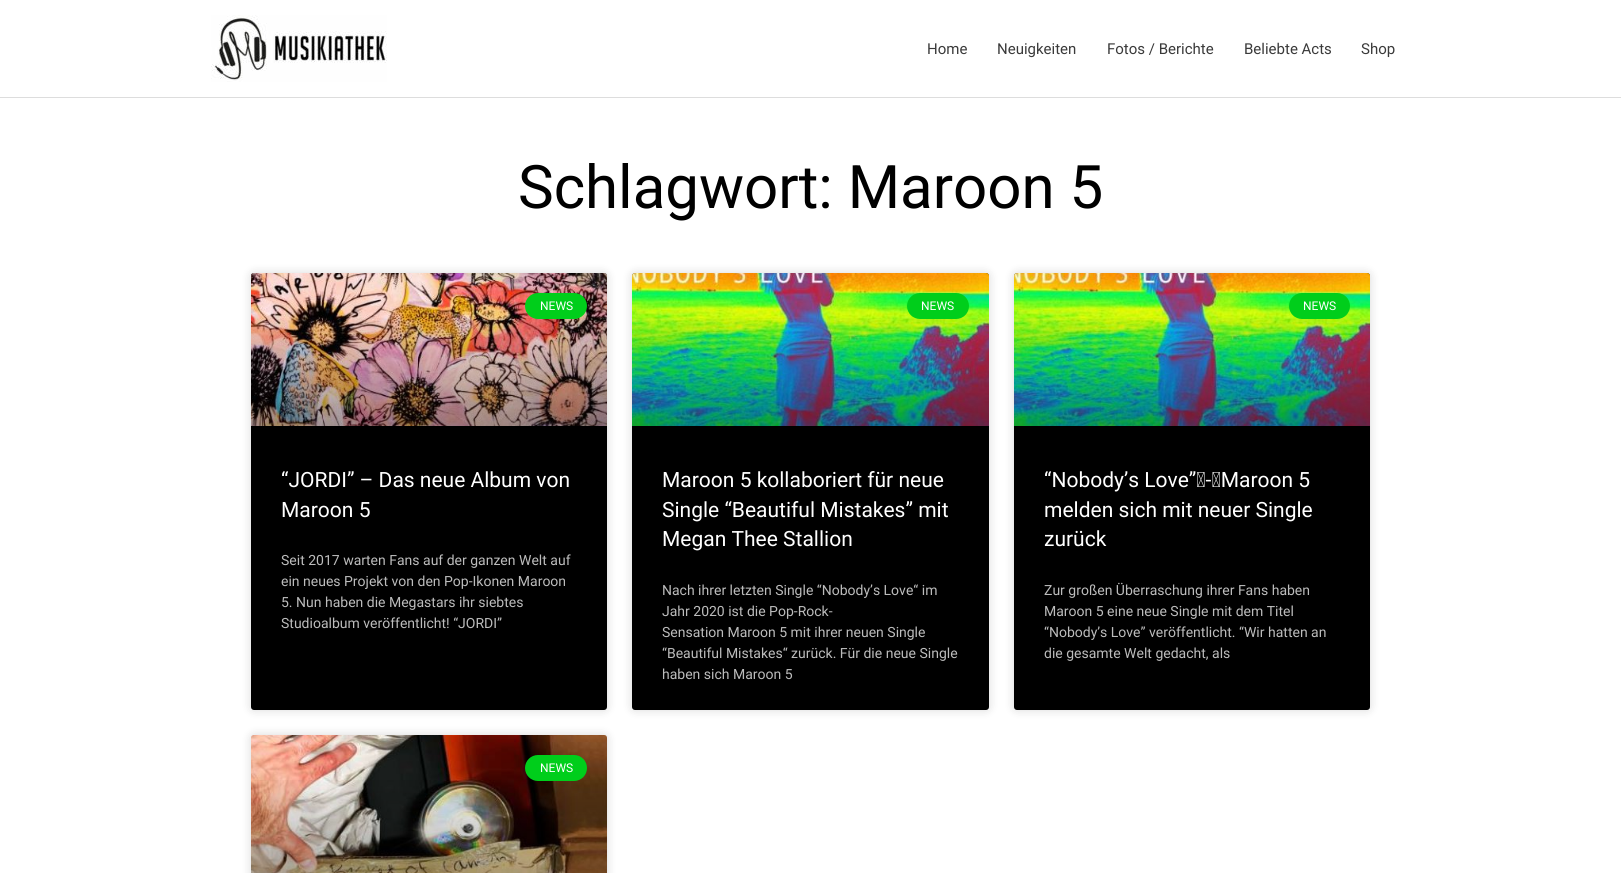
import math
import cairo


def round_path(ctx, x, y, w, h, r):
	ctx.new_sub_path()
	for i, (u, v) in enumerate([(x + w - r, y + h - r), (x + r, y + h - r), (x + r, y + r), (x + w - r, y + r)]):
		ctx.arc(u, v, r, i * math.pi / 2, (i + 1) * math.pi / 2)
	ctx.close_path()

def blur_box(ctx, x, y, w, h, r, blur, alpha):
	ctx.push_group_with_content(cairo.CONTENT_ALPHA)
	ctx.set_operator(cairo.OPERATOR_SOURCE)
	for i in range(15, -16, -2):
		e = blur * i / 6
		if min(w, h) + 2 * e > 0:
			ctx.set_source_rgba(0, 0, 0, alpha * math.erfc((i - 1) / 8.5) / 2)
			round_path(ctx, x - e, y - e, w + 2 * e, h + 2 * e, max(0, min(r + e + blur * .6, min(w, h) / 2 + e)))
			ctx.fill()
	ctx.mask(ctx.pop_group())

def paste(ctx, path, x, y, w, h):
	ctx.save()
	ctx.set_source_surface(cairo.ImageSurface.create_from_png(path), x, y)
	ctx.rectangle(x, y, w, h)
	ctx.fill()
	ctx.restore()

def draw(ctx):
	ctx.set_source_rgb(1, 1, 1)
	ctx.paint()
	ctx.set_source_rgb(0.867, 0.867, 0.867)
	ctx.rectangle(0, 97, 1621, 1)
	ctx.fill()
	paste(ctx, 'media/1.png', 211, 15, 176, 67)
	ctx.select_font_face('Roboto')
	ctx.set_font_size(15)
	ctx.set_source_rgb(0.227, 0.227, 0.227)
	for x, y, s in [
		(927, 54, 'Home'),
		(997, 54, 'Neuigkeiten'),
		(1107, 54, 'Fotos / Berichte'),
		(1244, 54, 'Beliebte Acts'),
		(1361, 54, 'Shop'),
	]:
		ctx.move_to(x, y)
		ctx.show_text(s)
	ctx.set_font_size(60)
	ctx.set_source_rgb(0, 0, 0)
	ctx.move_to(518, 208)
	ctx.show_text('Schlagwort: Maroon 5')
	ctx.set_source_rgb(0, 0, 0)
	blur_box(ctx, 251, 273, 356, 437, 3, 5, 0.15)
	ctx.set_source_rgb(0, 0, 0)
	round_path(ctx, 251, 273, 356, 437, 3)
	ctx.fill()
	paste(ctx, 'media/2.png', 251, 273, 356, 153)
	gradient = cairo.LinearGradient(429, 426, 429, 273)
	gradient.add_color_stop_rgba(0, 0, 0, 0, 0.35)
	gradient.add_color_stop_rgba(0.75, 0, 0, 0, 0)
	ctx.set_source(gradient)
	ctx.rectangle(251, 318, 356, 108)
	ctx.fill()
	ctx.set_source_rgb(0, 0.808, 0.106)
	round_path(ctx, 525, 293, 62, 26, 13)
	ctx.fill()
	ctx.set_font_size(12)
	ctx.set_source_rgb(1, 1, 1)
	ctx.move_to(540, 310)
	ctx.show_text('NEWS')
	ctx.set_font_size(21)
	ctx.move_to(281, 487)
	ctx.show_text('“JORDI” – Das neue Album von')
	ctx.move_to(281, 517)
	ctx.show_text('Maroon 5')
	ctx.set_font_size(14)
	ctx.set_source_rgb(0.737, 0.737, 0.737)
	for x, y, s in [
		(281, 565, 'Seit 2017 warten Fans auf der ganzen Welt auf'),
		(281, 586, 'ein neues Projekt von den Pop-Ikonen Maroon'),
		(281, 607, '5. Nun haben die Megastars ihr siebtes'),
		(281, 628, 'Studioalbum veröffentlicht! “JORDI”'),
	]:
		ctx.move_to(x, y)
		ctx.show_text(s)
	ctx.set_source_rgb(0, 0, 0)
	blur_box(ctx, 632, 273, 357, 437, 3, 5, 0.15)
	ctx.set_source_rgb(0, 0, 0)
	round_path(ctx, 632, 273, 357, 437, 3)
	ctx.fill()
	paste(ctx, 'media/3.png', 632, 273, 357, 153)
	gradient = cairo.LinearGradient(811, 426, 811, 273)
	gradient.add_color_stop_rgba(0, 0, 0, 0, 0.35)
	gradient.add_color_stop_rgba(0.75, 0, 0, 0, 0)
	ctx.set_source(gradient)
	ctx.rectangle(632, 318, 357, 108)
	ctx.fill()
	ctx.set_source_rgb(0, 0.808, 0.106)
	round_path(ctx, 907, 293, 62, 26, 13)
	ctx.fill()
	ctx.set_font_size(12)
	ctx.set_source_rgb(1, 1, 1)
	ctx.move_to(921, 310)
	ctx.show_text('NEWS')
	ctx.set_font_size(21)
	for x, y, s in [
		(662, 487, 'Maroon 5 kollaboriert für neue'),
		(662, 517, 'Single “Beautiful Mistakes” mit'),
		(662, 546, 'Megan Thee Stallion'),
	]:
		ctx.move_to(x, y)
		ctx.show_text(s)
	ctx.set_font_size(14)
	ctx.set_source_rgb(0.737, 0.737, 0.737)
	for x, y, s in [
		(662, 595, 'Nach ihrer letzten Single “Nobody’s Love“ im'),
		(662, 616, 'Jahr 2020 ist die Pop-Rock-'),
		(662, 637, 'Sensation Maroon 5 mit ihrer neuen Single'),
		(662, 658, '“Beautiful Mistakes“ zurück. Für die neue Single'),
		(662, 679, 'haben sich Maroon 5'),
	]:
		ctx.move_to(x, y)
		ctx.show_text(s)
	ctx.set_source_rgb(0, 0, 0)
	blur_box(ctx, 1014, 273, 356, 437, 3, 5, 0.15)
	ctx.set_source_rgb(0, 0, 0)
	round_path(ctx, 1014, 273, 356, 437, 3)
	ctx.fill()
	paste(ctx, 'media/4.png', 1014, 273, 356, 153)
	gradient = cairo.LinearGradient(1192, 426, 1192, 273)
	gradient.add_color_stop_rgba(0, 0, 0, 0, 0.35)
	gradient.add_color_stop_rgba(0.75, 0, 0, 0, 0)
	ctx.set_source(gradient)
	ctx.rectangle(1014, 318, 356, 108)
	ctx.fill()
	ctx.set_source_rgb(0, 0.808, 0.106)
	round_path(ctx, 1289, 293, 61, 26, 13)
	ctx.fill()
	ctx.set_font_size(12)
	ctx.set_source_rgb(1, 1, 1)
	ctx.move_to(1303, 310)
	ctx.show_text('NEWS')
	ctx.set_font_size(21)
	for x, y, s in [
		(1044, 487, '“Nobody’s Love” - Maroon 5'),
		(1044, 517, 'melden sich mit neuer Single'),
		(1044, 546, 'zurück'),
	]:
		ctx.move_to(x, y)
		ctx.show_text(s)
	ctx.set_font_size(14)
	ctx.set_source_rgb(0.737, 0.737, 0.737)
	for x, y, s in [
		(1044, 595, 'Zur großen Überraschung ihrer Fans haben'),
		(1044, 616, 'Maroon 5 eine neue Single mit dem Titel'),
		(1044, 637, '“Nobody’s Love” veröffentlicht. “Wir hatten an'),
		(1044, 658, 'die gesamte Welt gedacht, als'),
	]:
		ctx.move_to(x, y)
		ctx.show_text(s)
	ctx.set_source_rgb(0, 0, 0)
	blur_box(ctx, 251, 735, 356, 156, 3, 5, 0.15)
	paste(ctx, 'media/5.png', 251, 735, 356, 138)
	gradient = cairo.LinearGradient(429, 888, 429, 735)
	gradient.add_color_stop_rgba(0, 0, 0, 0, 0.35)
	gradient.add_color_stop_rgba(0.75, 0, 0, 0, 0)
	ctx.set_source(gradient)
	ctx.rectangle(251, 780, 356, 93)
	ctx.fill()
	ctx.set_source_rgb(0, 0.808, 0.106)
	round_path(ctx, 525, 755, 62, 26, 13)
	ctx.fill()
	ctx.set_font_size(12)
	ctx.set_source_rgb(1, 1, 1)
	ctx.move_to(540, 772)
	ctx.show_text('NEWS')


surface = cairo.ImageSurface(cairo.FORMAT_RGB24, 1621, 873)
ctx = cairo.Context(surface)
options = cairo.FontOptions()
options.set_hint_metrics(cairo.HINT_METRICS_OFF)
options.set_hint_style(cairo.HINT_STYLE_NONE)
ctx.set_font_options(options)
ctx.set_miter_limit(4)
draw(ctx)
surface.write_to_png('image.png')
